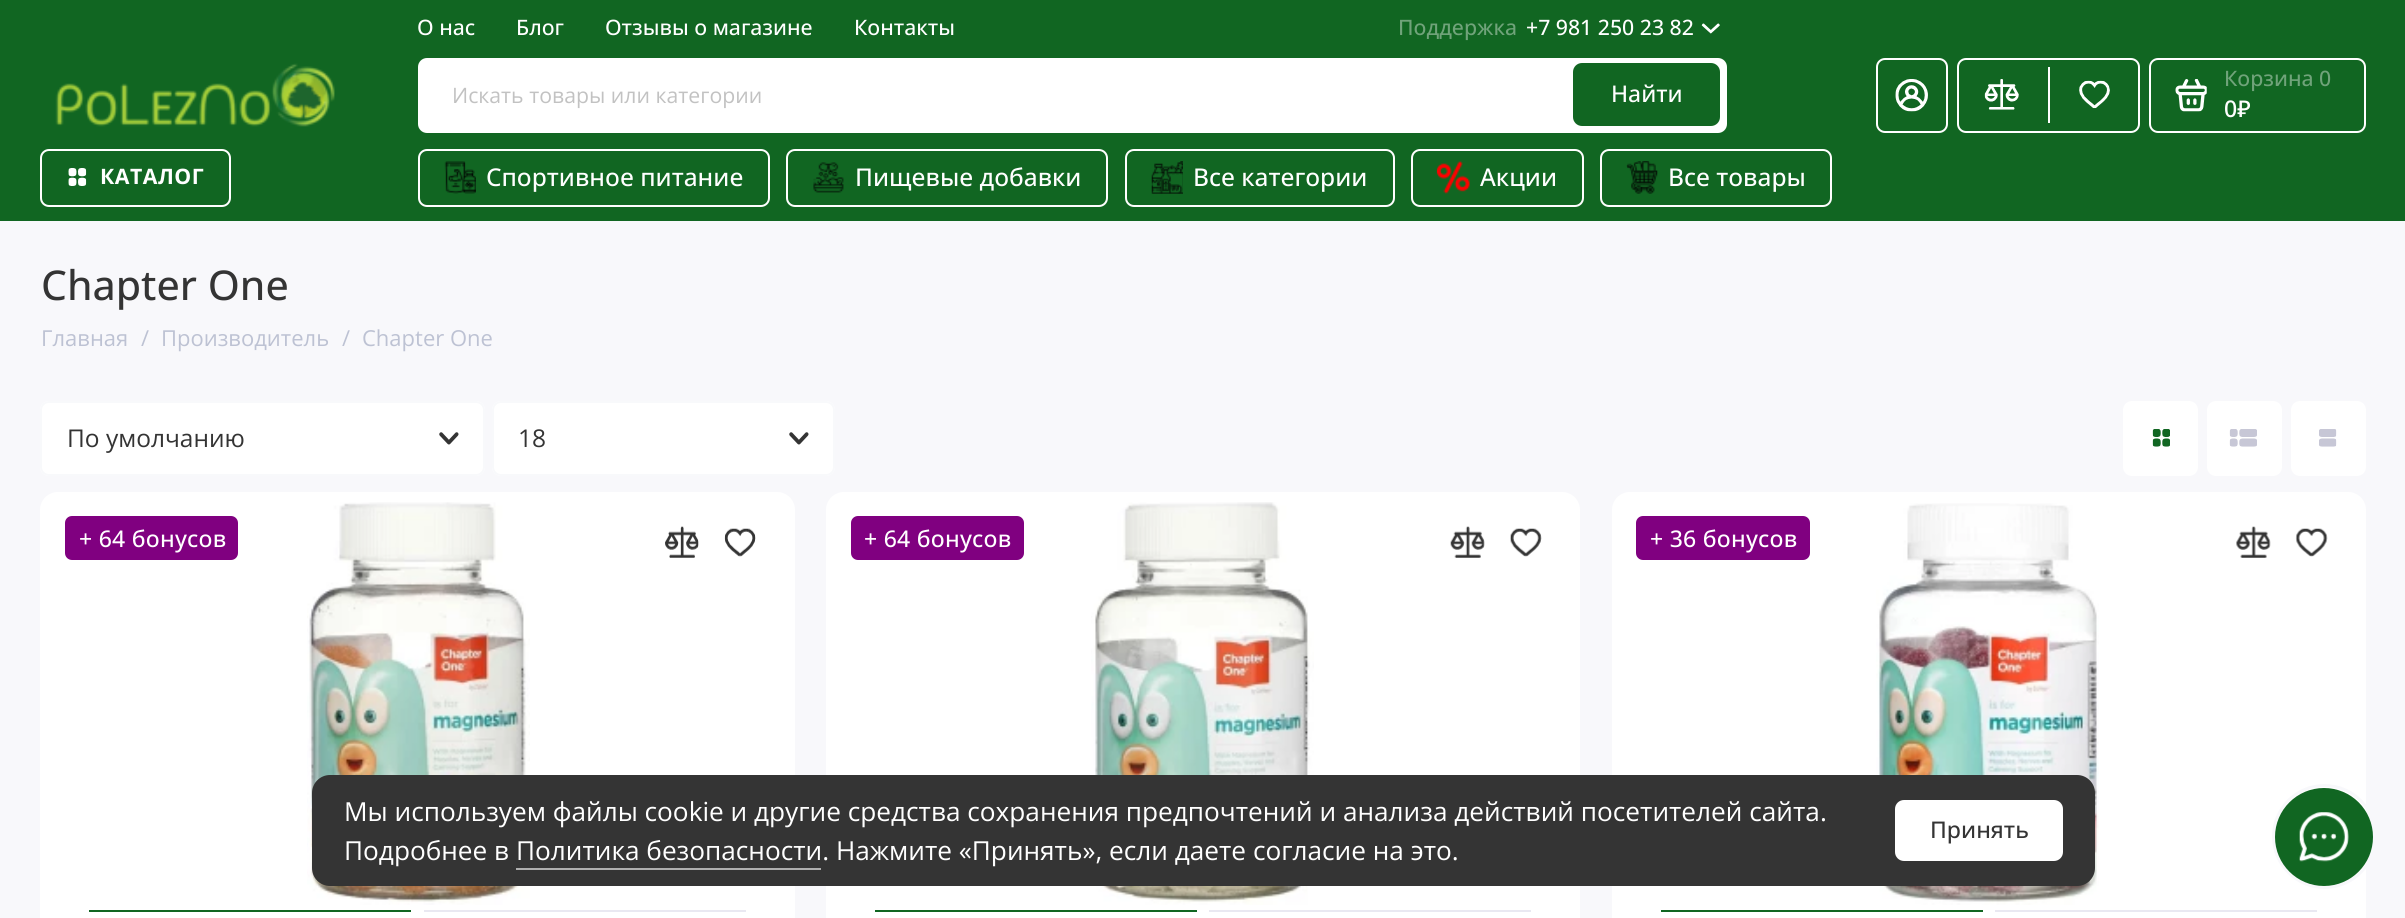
import math
import cairo


def write_spaced(ctx, x, y, s, letter, word):
	ctx.move_to(x, y)
	for ch in s:
		ctx.show_text(ch)
		ctx.rel_move_to(letter + word * (ch == ' '), 0)

def round_path(ctx, x, y, w, h, r):
	ctx.new_sub_path()
	for i, (u, v) in enumerate([(x + w - r, y + h - r), (x + r, y + h - r), (x + r, y + r), (x + w - r, y + r)]):
		ctx.arc(u, v, r, i * math.pi / 2, (i + 1) * math.pi / 2)
	ctx.close_path()

def paste(ctx, path, x, y, w, h):
	ctx.save()
	ctx.set_source_surface(cairo.ImageSurface.create_from_png(path), x, y)
	ctx.rectangle(x, y, w, h)
	ctx.fill()
	ctx.restore()

def draw(ctx):
	ctx.set_source_rgb(0.969, 0.969, 0.984)
	ctx.paint()
	ctx.set_source_rgb(0.067, 0.4, 0.133)
	ctx.rectangle(0, 0, 2405, 221)
	ctx.fill()
	ctx.select_font_face('Open Sans Medium')
	ctx.set_font_size(21.25)
	ctx.set_source_rgb(1, 1, 1)
	for x, y, s in [
		(417, 35, 'О нас'),
		(516, 35, 'Блог'),
		(605, 35, 'Отзывы о магазине'),
		(854, 35, 'Контакты'),
	]:
		ctx.move_to(x, y)
		ctx.show_text(s)
	ctx.set_source_rgb(0.439, 0.639, 0.478)
	ctx.move_to(1398, 35)
	ctx.show_text('Поддержка')
	ctx.set_source_rgb(1, 1, 1)
	ctx.move_to(1526, 35)
	ctx.show_text('+7 981 250 23 82')
	paste(ctx, 'media/1.png', 1701, 23, 19, 11)
	paste(ctx, 'media/2.png', 55, 63, 280, 64)
	round_path(ctx, 418, 58, 1309, 75, 9)
	ctx.fill()
	ctx.select_font_face('Open Sans')
	ctx.set_source_rgb(0.761, 0.761, 0.761)
	ctx.move_to(452, 103)
	ctx.show_text('Искать товары или категории')
	ctx.set_source_rgb(0.067, 0.4, 0.133)
	round_path(ctx, 1573, 63, 147, 63, 9)
	ctx.fill()
	ctx.select_font_face('Open Sans Medium')
	ctx.set_font_size(23)
	ctx.set_source_rgb(1, 1, 1)
	ctx.move_to(1611, 102)
	ctx.show_text('Найти')
	round_path(ctx, 1877, 59, 70, 73, 8)
	ctx.stroke()
	paste(ctx, 'media/3.png', 1895, 79, 33, 33)
	round_path(ctx, 1958, 59, 181, 73, 8)
	ctx.stroke()
	paste(ctx, 'media/4.png', 1984, 79, 35, 31)
	ctx.rectangle(2048, 67, 2, 56)
	ctx.fill()
	paste(ctx, 'media/5.png', 2079, 80, 31, 29)
	round_path(ctx, 2150, 59, 215, 73, 8)
	ctx.stroke()
	paste(ctx, 'media/6.png', 2175, 79, 32, 33)
	ctx.set_font_size(21.25)
	ctx.set_source_rgb(0.439, 0.639, 0.478)
	ctx.move_to(2224, 86)
	ctx.show_text('Корзина 0')
	ctx.select_font_face('Noto Sans Medium')
	ctx.set_font_size(23)
	ctx.set_source_rgb(1, 1, 1)
	ctx.move_to(2224, 117)
	ctx.show_text('0₽')
	round_path(ctx, 41, 150, 189, 56, 8)
	ctx.stroke()
	paste(ctx, 'media/7.png', 68, 168, 19, 18)
	ctx.select_font_face('Open Sans', cairo.FONT_SLANT_NORMAL, cairo.FONT_WEIGHT_BOLD)
	ctx.set_font_size(21.25)
	write_spaced(ctx, 100, 184, 'КАТАЛОГ', 0.5, 0)
	round_path(ctx, 419, 150, 350, 56, 8)
	ctx.stroke()
	paste(ctx, 'media/8.png', 444, 161, 32, 33)
	ctx.select_font_face('Open Sans Medium')
	ctx.set_font_size(24.5)
	ctx.move_to(486, 186)
	ctx.show_text('Спортивное питание')
	round_path(ctx, 787, 150, 320, 56, 8)
	ctx.stroke()
	paste(ctx, 'media/9.png', 813, 162, 31, 31)
	ctx.move_to(855, 186)
	ctx.show_text('Пищевые добавки')
	round_path(ctx, 1126, 150, 268, 56, 8)
	ctx.stroke()
	paste(ctx, 'media/10.png', 1151, 161, 32, 33)
	ctx.move_to(1193, 186)
	ctx.show_text('Все категории')
	round_path(ctx, 1412, 150, 171, 56, 8)
	ctx.stroke()
	paste(ctx, 'media/11.png', 1436, 161, 34, 33)
	ctx.move_to(1480, 186)
	ctx.show_text('Акции')
	round_path(ctx, 1601, 150, 230, 56, 8)
	ctx.stroke()
	paste(ctx, 'media/12.png', 1626, 161, 32, 33)
	ctx.move_to(1668, 186)
	ctx.show_text('Все товары')
	round_path(ctx, 1612, 492, 754, 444, 18)
	ctx.fill()
	ctx.arc(2324.5, 836.5, 51, 0, 2 * math.pi)
	ctx.set_source_rgb(0.969, 0.969, 0.984)
	ctx.set_line_width(3)
	ctx.stroke()
	ctx.set_source_rgb(0.067, 0.4, 0.133)
	ctx.arc(2324, 837, 49, 0, 2 * math.pi)
	ctx.fill()
	paste(ctx, 'media/13.png', 2299, 812, 50, 50)
	ctx.set_font_size(41)
	ctx.set_source_rgb(0.204, 0.204, 0.204)
	ctx.move_to(41, 300)
	ctx.show_text('Chapter One')
	ctx.select_font_face('Open Sans')
	ctx.set_font_size(22)
	ctx.set_source_rgb(0.741, 0.761, 0.827)
	for x, y, s in [
		(41, 346, 'Главная'),
		(141, 346, '/'),
		(161, 346, 'Производитель'),
		(342, 346, '/'),
		(362, 346, 'Chapter One'),
	]:
		ctx.move_to(x, y)
		ctx.show_text(s)
	ctx.set_source_rgb(1, 1, 1)
	round_path(ctx, 40, 401, 445, 75, 9)
	ctx.fill()
	paste(ctx, 'media/14.png', 439, 432, 20, 13)
	round_path(ctx, 41, 402, 443, 73, 8)
	ctx.set_source_rgb(0.969, 0.973, 0.984)
	ctx.set_line_width(2)
	ctx.stroke()
	ctx.set_font_size(24.5)
	ctx.set_source_rgb(0.204, 0.204, 0.204)
	ctx.move_to(67, 447)
	ctx.show_text('По умолчанию')
	ctx.set_source_rgb(1, 1, 1)
	round_path(ctx, 492, 401, 343, 75, 9)
	ctx.fill()
	paste(ctx, 'media/14.png', 789, 432, 20, 13)
	round_path(ctx, 493, 402, 341, 73, 8)
	ctx.set_source_rgb(0.969, 0.973, 0.984)
	ctx.stroke()
	ctx.set_source_rgb(0.204, 0.204, 0.204)
	ctx.move_to(518, 447)
	ctx.show_text('18')
	ctx.set_source_rgb(1, 1, 1)
	round_path(ctx, 2123, 401, 75, 75, 9)
	ctx.fill()
	paste(ctx, 'media/15.png', 2152, 429, 18, 18)
	round_path(ctx, 2207, 401, 75, 75, 9)
	ctx.fill()
	paste(ctx, 'media/16.png', 2229, 429, 28, 18)
	round_path(ctx, 2291, 401, 75, 75, 9)
	ctx.fill()
	paste(ctx, 'media/17.png', 2319, 429, 18, 18)
	round_path(ctx, 40, 492, 755, 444, 18)
	ctx.fill()
	paste(ctx, 'media/18.png', 307, 502, 223, 403)
	ctx.set_source_rgb(0.067, 0.4, 0.133)
	ctx.rectangle(89, 910, 322, 2)
	ctx.fill()
	ctx.set_source_rgb(0.914, 0.91, 0.945)
	ctx.rectangle(424, 910, 322, 2)
	ctx.fill()
	ctx.set_source_rgb(0.502, 0, 0.502)
	round_path(ctx, 65, 516, 173, 44, 7)
	ctx.fill()
	ctx.select_font_face('Open Sans Medium')
	ctx.set_font_size(23)
	ctx.set_source_rgb(1, 1, 1)
	write_spaced(ctx, 79, 547, '+ 64 бонусов', 0.25, 0)
	paste(ctx, 'media/19.png', 665, 526, 34, 32)
	paste(ctx, 'media/20.png', 724, 528, 32, 29)
	round_path(ctx, 826, 492, 754, 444, 18)
	ctx.fill()
	paste(ctx, 'media/21.png', 1091, 502, 223, 403)
	ctx.set_source_rgb(0.067, 0.4, 0.133)
	ctx.rectangle(875, 910, 322, 2)
	ctx.fill()
	ctx.set_source_rgb(0.914, 0.91, 0.945)
	ctx.rectangle(1209, 910, 322, 2)
	ctx.fill()
	ctx.set_source_rgb(0.502, 0, 0.502)
	round_path(ctx, 851, 516, 173, 44, 7)
	ctx.fill()
	ctx.set_source_rgb(1, 1, 1)
	write_spaced(ctx, 864, 547, '+ 64 бонусов', 0.25, 0)
	paste(ctx, 'media/22.png', 1450, 526, 35, 32)
	paste(ctx, 'media/23.png', 1510, 528, 32, 29)
	paste(ctx, 'media/24.png', 1876, 503, 223, 402)
	ctx.set_source_rgb(0.067, 0.4, 0.133)
	ctx.rectangle(1661, 910, 322, 2)
	ctx.fill()
	ctx.set_source_rgb(0.914, 0.91, 0.945)
	ctx.rectangle(1995, 910, 322, 2)
	ctx.fill()
	ctx.set_source_rgb(0.502, 0, 0.502)
	round_path(ctx, 1636, 516, 174, 44, 7)
	ctx.fill()
	ctx.set_source_rgb(1, 1, 1)
	write_spaced(ctx, 1650, 547, '+ 36 бонусов', 0.25, 0)
	paste(ctx, 'media/25.png', 2236, 526, 35, 32)
	paste(ctx, 'media/26.png', 2295, 528, 33, 29)
	ctx.set_source_rgb(0.204, 0.204, 0.204)
	round_path(ctx, 312, 775, 1783, 111, 18)
	ctx.fill()
	ctx.select_font_face('Open Sans')
	ctx.set_font_size(26.2)
	ctx.set_source_rgb(1, 1, 1)
	ctx.move_to(344, 821)
	ctx.show_text('Мы используем файлы cookie и другие средства сохранения предпочтений и анализа действий посетителей сайта.')
	ctx.move_to(344, 860)
	ctx.show_text('Подробнее в Политика безопасности. Нажмите «Принять», если даете согласие на это.')
	ctx.set_source_rgb(0.682, 0.682, 0.682)
	ctx.rectangle(516, 868, 305, 2)
	ctx.fill()
	ctx.set_source_rgb(1, 1, 1)
	round_path(ctx, 1895, 800, 168, 61, 9)
	ctx.fill()
	ctx.select_font_face('Open Sans Medium')
	ctx.set_font_size(23)
	ctx.set_source_rgb(0.204, 0.204, 0.204)
	ctx.move_to(1930, 838)
	ctx.show_text('Принять')


surface = cairo.ImageSurface(cairo.FORMAT_RGB24, 2405, 918)
ctx = cairo.Context(surface)
options = cairo.FontOptions()
options.set_hint_metrics(cairo.HINT_METRICS_OFF)
options.set_hint_style(cairo.HINT_STYLE_NONE)
ctx.set_font_options(options)
ctx.set_miter_limit(4)
draw(ctx)
surface.write_to_png('image.png')
